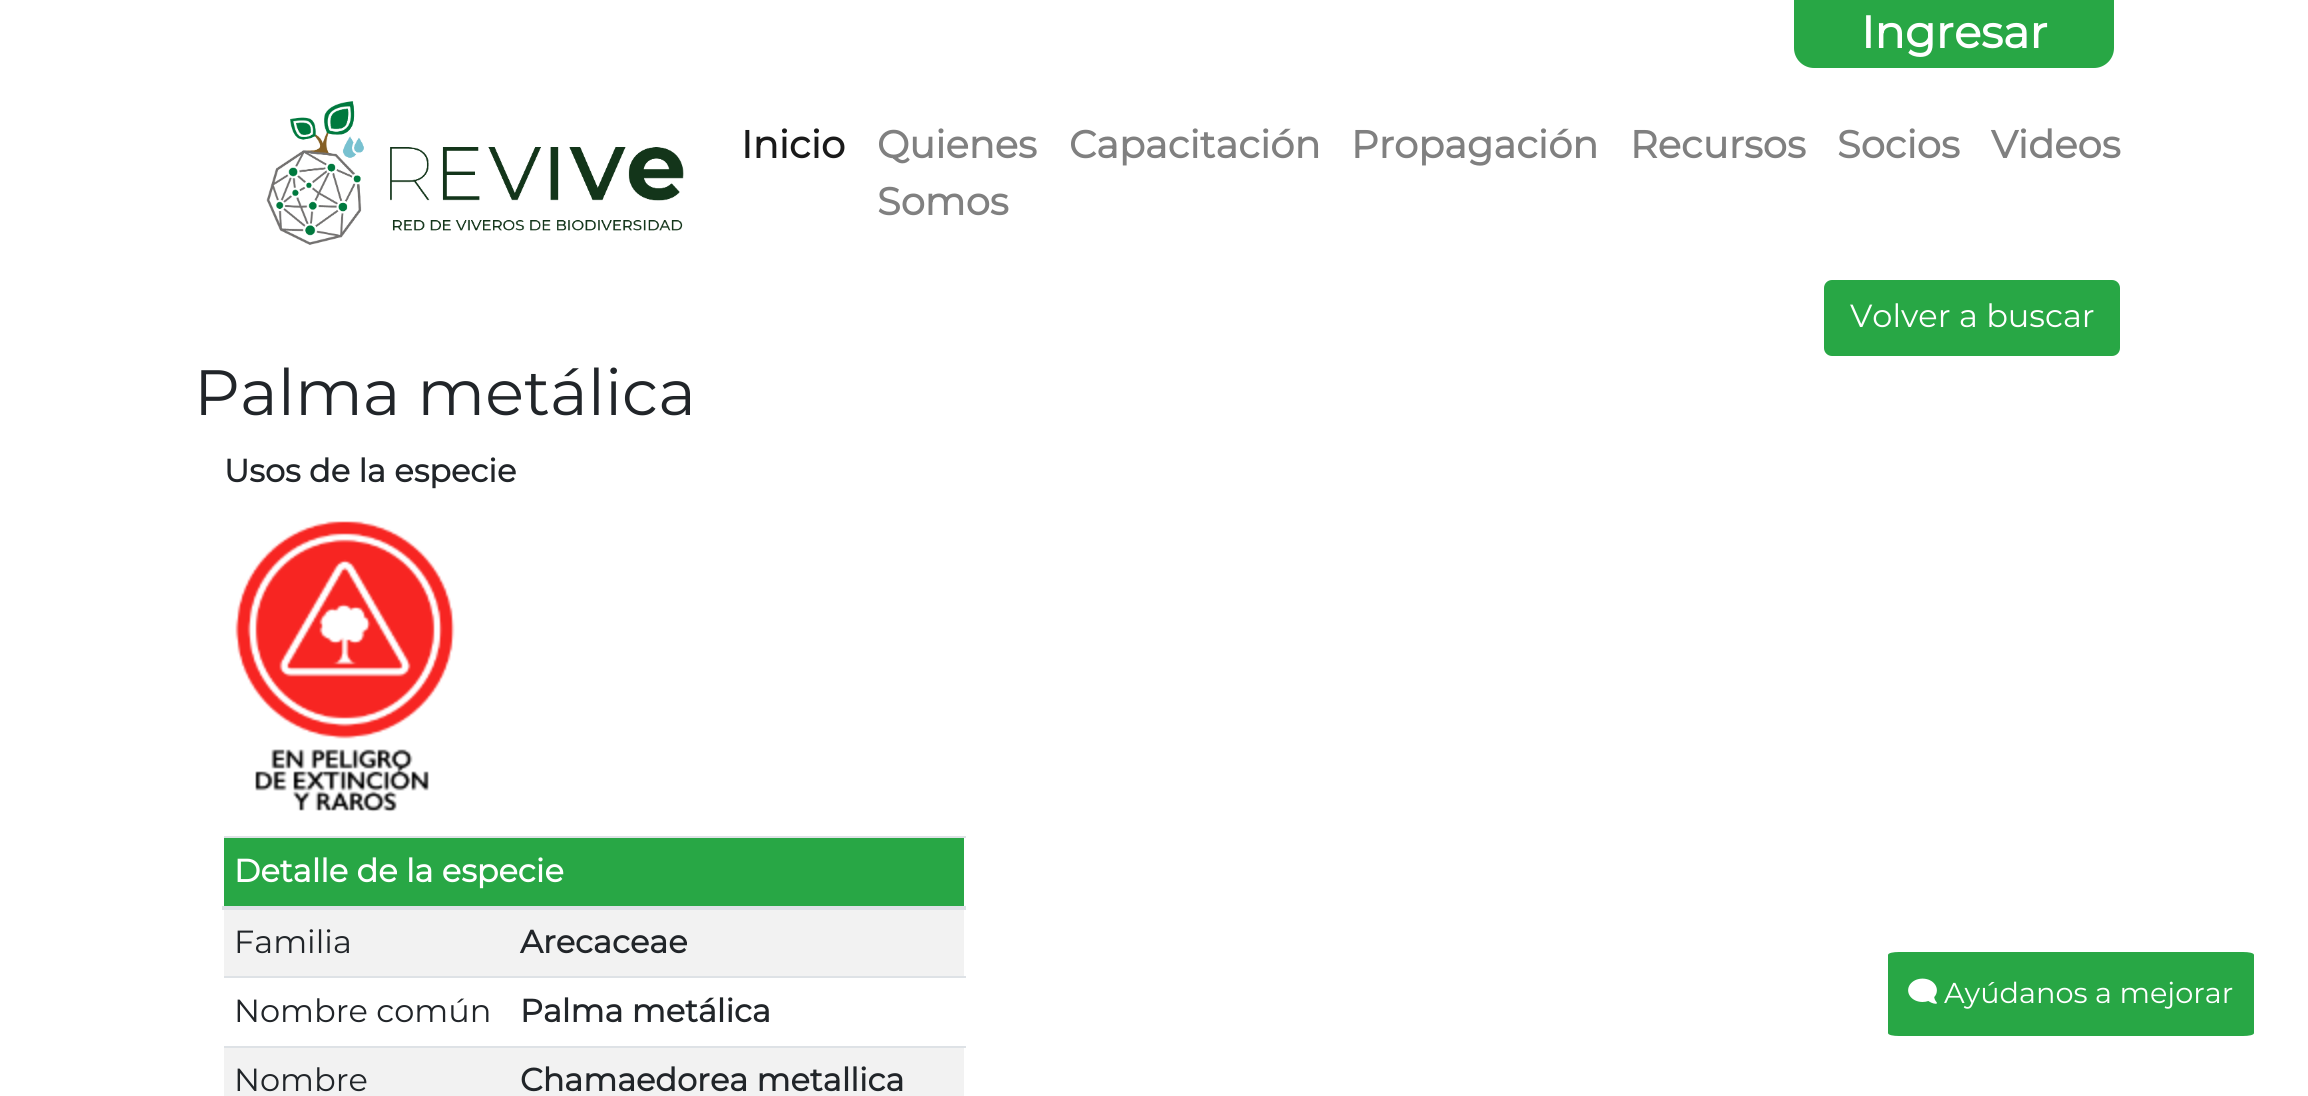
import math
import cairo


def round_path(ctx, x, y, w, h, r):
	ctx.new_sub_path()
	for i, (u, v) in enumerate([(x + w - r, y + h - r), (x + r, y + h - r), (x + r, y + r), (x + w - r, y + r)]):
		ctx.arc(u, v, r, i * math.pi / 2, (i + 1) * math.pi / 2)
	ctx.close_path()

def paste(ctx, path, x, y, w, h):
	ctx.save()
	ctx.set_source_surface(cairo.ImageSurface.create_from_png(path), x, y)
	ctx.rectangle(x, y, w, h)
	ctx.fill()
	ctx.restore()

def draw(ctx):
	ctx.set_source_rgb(1, 1, 1)
	ctx.paint()
	ctx.set_source_rgb(0.157, 0.655, 0.271)
	ctx.new_path()
	ctx.move_to(1794, 0)
	ctx.line_to(2114, 0)
	ctx.line_to(2114, 48)
	ctx.curve_to(2114, 59, 2105, 68, 2094, 68)
	ctx.line_to(1814, 68)
	ctx.curve_to(1803, 68, 1794, 59, 1794, 48)
	ctx.close_path()
	ctx.fill()
	ctx.select_font_face('Montserrat', cairo.FONT_SLANT_NORMAL, cairo.FONT_WEIGHT_BOLD)
	ctx.set_font_size(45)
	ctx.set_source_rgb(1, 1, 1)
	ctx.move_to(1861, 48)
	ctx.show_text('Ingresar')
	paste(ctx, 'media/1.png', 266, 101, 418, 144)
	ctx.set_font_size(38.5)
	ctx.set_source_rgb(0.102, 0.102, 0.102)
	ctx.move_to(741, 158)
	ctx.show_text('Inicio')
	ctx.set_source_rgb(0.502, 0.502, 0.502)
	for x, y, s in [
		(877, 158, 'Quienes'),
		(877, 215, 'Somos'),
		(1069, 158, 'Capacitación'),
		(1351, 158, 'Propagación'),
		(1630, 158, 'Recursos'),
		(1837, 158, 'Socios'),
		(1991, 158, 'Videos'),
	]:
		ctx.move_to(x, y)
		ctx.show_text(s)
	ctx.set_source_rgb(0.157, 0.655, 0.271)
	round_path(ctx, 1825, 281, 294, 74, 7)
	ctx.fill_preserve()
	ctx.stroke()
	ctx.select_font_face('Montserrat Thin')
	ctx.set_font_size(32)
	ctx.set_source_rgb(1, 1, 1)
	ctx.move_to(1850, 327)
	ctx.show_text('Volver a buscar')
	ctx.set_font_size(64)
	ctx.set_source_rgb(0.129, 0.145, 0.161)
	ctx.move_to(194, 415)
	ctx.show_text('Palma metálica')
	ctx.select_font_face('Montserrat', cairo.FONT_SLANT_NORMAL, cairo.FONT_WEIGHT_BOLD)
	ctx.set_font_size(32)
	ctx.move_to(224, 482)
	ctx.show_text('Usos de la especie')
	paste(ctx, 'media/2.png', 235, 521, 220, 291)
	ctx.set_source_rgb(0.157, 0.655, 0.271)
	ctx.rectangle(224, 838, 740, 68)
	ctx.fill()
	ctx.set_source_rgb(0.871, 0.886, 0.902)
	ctx.rectangle(224, 836, 742, 2)
	ctx.rectangle(222, 906, 744, 4)
	ctx.fill()
	ctx.set_source_rgb(1, 1, 1)
	ctx.move_to(234, 882)
	ctx.show_text('Detalle de la especie')
	ctx.set_source_rgb(0.949, 0.949, 0.949)
	ctx.rectangle(224, 910, 740, 66)
	ctx.fill()
	ctx.select_font_face('Montserrat Thin')
	ctx.set_source_rgb(0.129, 0.145, 0.161)
	ctx.move_to(234, 953)
	ctx.show_text('Familia')
	ctx.select_font_face('Montserrat', cairo.FONT_SLANT_NORMAL, cairo.FONT_WEIGHT_BOLD)
	ctx.move_to(520, 953)
	ctx.show_text('Arecaceae')
	ctx.select_font_face('Montserrat Thin')
	ctx.move_to(234, 1022)
	ctx.show_text('Nombre común')
	ctx.set_source_rgb(0.871, 0.886, 0.902)
	ctx.rectangle(224, 976, 742, 2)
	ctx.fill()
	ctx.select_font_face('Montserrat', cairo.FONT_SLANT_NORMAL, cairo.FONT_WEIGHT_BOLD)
	ctx.set_source_rgb(0.129, 0.145, 0.161)
	ctx.move_to(520, 1022)
	ctx.show_text('Palma metálica')
	ctx.set_source_rgb(0.949, 0.949, 0.949)
	ctx.rectangle(224, 1048, 740, 48)
	ctx.fill()
	ctx.select_font_face('Montserrat Thin')
	ctx.set_source_rgb(0.129, 0.145, 0.161)
	ctx.move_to(234, 1091)
	ctx.show_text('Nombre')
	ctx.set_source_rgb(0.871, 0.886, 0.902)
	ctx.rectangle(224, 1046, 742, 2)
	ctx.fill()
	ctx.select_font_face('Montserrat', cairo.FONT_SLANT_NORMAL, cairo.FONT_WEIGHT_BOLD)
	ctx.set_source_rgb(0.129, 0.145, 0.161)
	ctx.move_to(520, 1091)
	ctx.show_text('Chamaedorea metallica')
	ctx.set_source_rgb(0.157, 0.655, 0.271)
	ctx.new_path()
	ctx.move_to(1899, 952)
	ctx.line_to(2243, 952)
	ctx.curve_to(2249, 952, 2254, 953, 2254, 955)
	ctx.line_to(2254, 1033)
	ctx.curve_to(2254, 1035, 2249, 1036, 2243, 1036)
	ctx.line_to(1899, 1036)
	ctx.curve_to(1893, 1036, 1888, 1035, 1888, 1033)
	ctx.line_to(1888, 955)
	ctx.curve_to(1888, 953, 1893, 952, 1899, 952)
	ctx.close_path()
	ctx.fill()
	paste(ctx, 'media/3.png', 1908, 978, 29, 26)
	ctx.select_font_face('Montserrat Thin')
	ctx.set_font_size(28.75)
	ctx.set_source_rgb(1, 1, 1)
	ctx.move_to(1944, 1003)
	ctx.show_text('Ayúdanos a mejorar')


surface = cairo.ImageSurface(cairo.FORMAT_RGB24, 2308, 1096)
ctx = cairo.Context(surface)
options = cairo.FontOptions()
options.set_hint_metrics(cairo.HINT_METRICS_OFF)
options.set_hint_style(cairo.HINT_STYLE_NONE)
ctx.set_font_options(options)
ctx.set_miter_limit(4)
draw(ctx)
surface.write_to_png('image.png')
